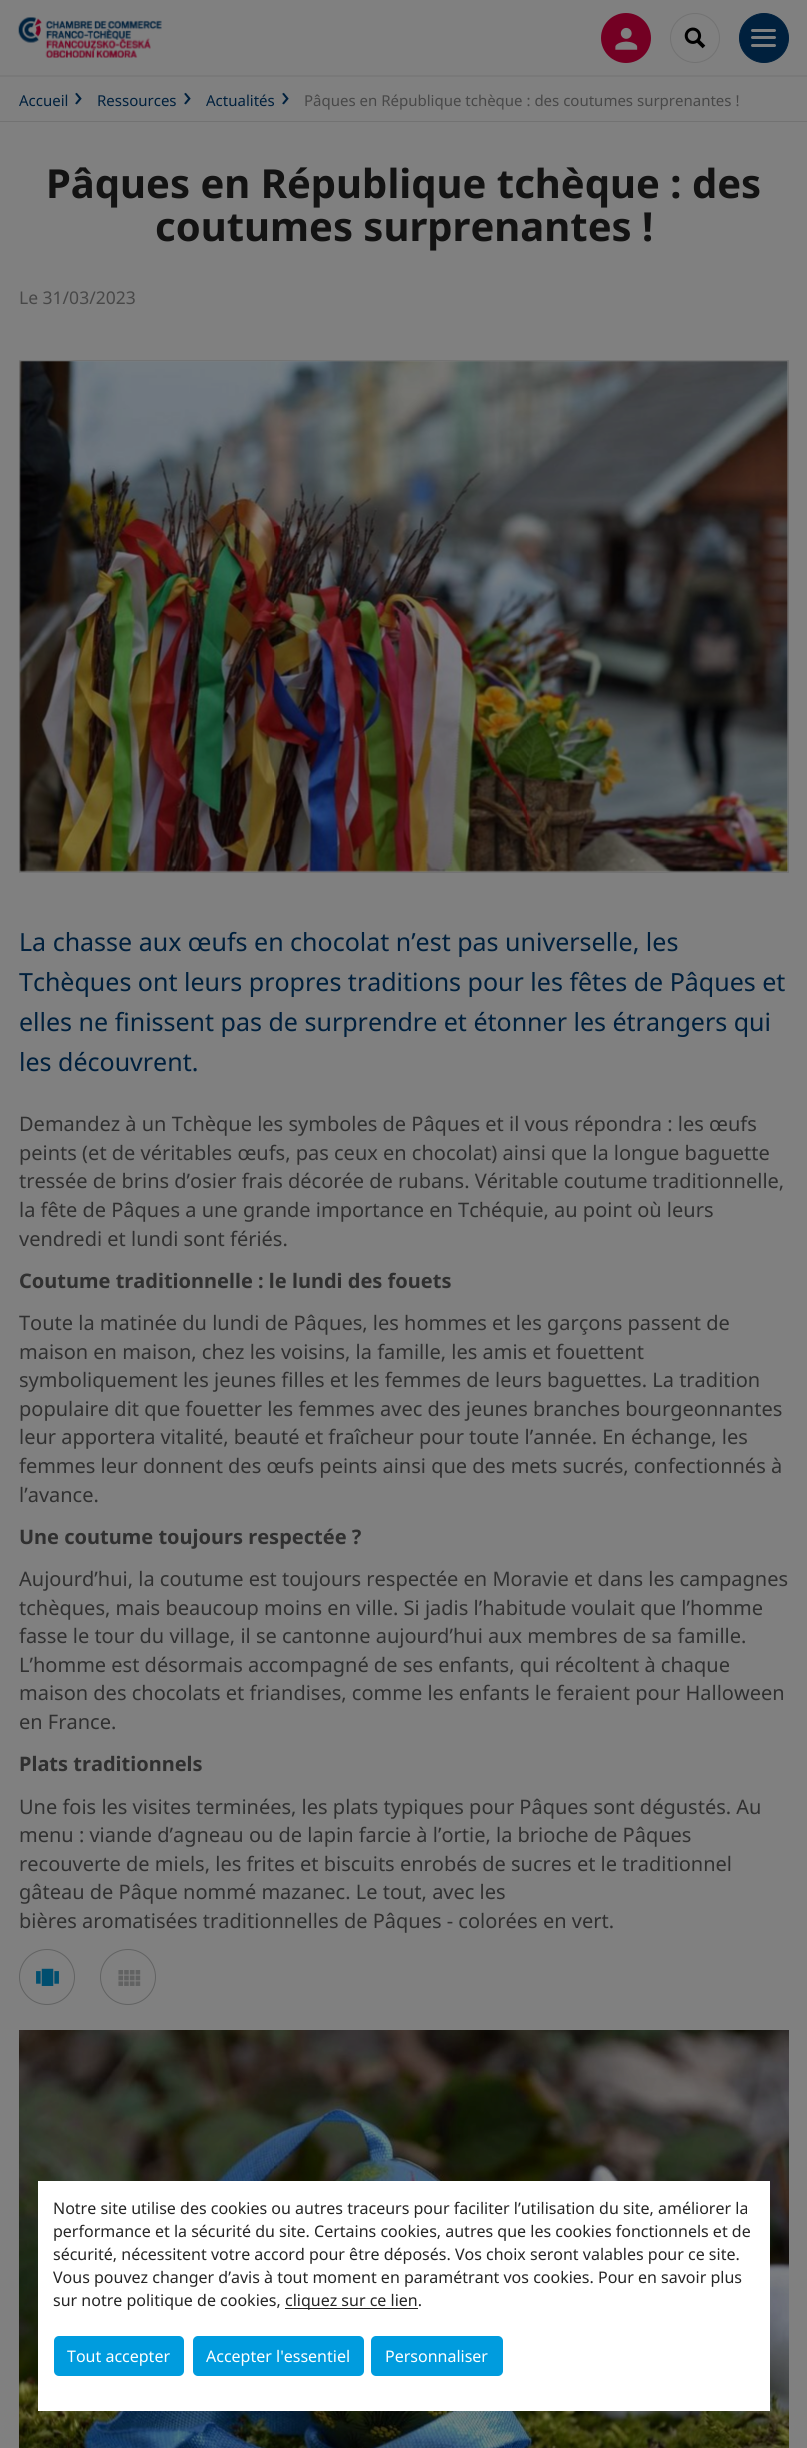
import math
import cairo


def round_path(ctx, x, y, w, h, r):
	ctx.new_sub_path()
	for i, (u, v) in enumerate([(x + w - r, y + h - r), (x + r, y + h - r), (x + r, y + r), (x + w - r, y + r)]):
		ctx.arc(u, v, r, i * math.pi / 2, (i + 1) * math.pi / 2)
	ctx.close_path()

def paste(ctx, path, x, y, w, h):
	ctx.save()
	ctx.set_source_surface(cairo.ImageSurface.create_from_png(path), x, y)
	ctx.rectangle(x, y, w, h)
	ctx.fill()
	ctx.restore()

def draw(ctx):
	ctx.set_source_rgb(0.502, 0.502, 0.502)
	ctx.paint()
	ctx.set_source_rgb(0.475, 0.475, 0.475)
	ctx.rectangle(0, 75, 807, 2)
	ctx.fill()
	paste(ctx, 'media/1.png', 18, 17, 144, 41)
	ctx.set_source_rgb(0.451, 0, 0.137)
	ctx.arc(626, 38, 25, 0, 2 * math.pi)
	ctx.fill()
	paste(ctx, 'media/2.png', 615, 27, 23, 23)
	ctx.arc(695, 38, 24.5, 0, 2 * math.pi)
	ctx.set_source_rgb(0.447, 0.447, 0.447)
	ctx.set_line_width(1)
	ctx.stroke()
	paste(ctx, 'media/3.png', 684, 27, 22, 22)
	ctx.set_source_rgb(0, 0.125, 0.239)
	ctx.arc(764, 38, 24.5, 0, 2 * math.pi)
	ctx.fill_preserve()
	ctx.stroke()
	ctx.set_source_rgb(0.502, 0.502, 0.502)
	round_path(ctx, 751, 29, 25, 3, 1.5)
	ctx.fill()
	round_path(ctx, 751, 36, 25, 3, 1.5)
	ctx.fill()
	round_path(ctx, 751, 44, 25, 3, 1.5)
	ctx.fill()
	ctx.set_source_rgb(0.447, 0.447, 0.447)
	ctx.rectangle(0, 121, 807, 1)
	ctx.fill()
	ctx.select_font_face('Noto Sans')
	ctx.set_font_size(15)
	ctx.set_source_rgb(0, 0.125, 0.239)
	ctx.move_to(19, 106)
	ctx.show_text('Accueil')
	ctx.set_font_size(28)
	ctx.move_to(74, 106)
	ctx.show_text('›')
	ctx.set_font_size(15)
	ctx.move_to(97, 106)
	ctx.show_text('Ressources')
	ctx.set_font_size(28)
	ctx.move_to(183, 106)
	ctx.show_text('›')
	ctx.set_font_size(15)
	ctx.move_to(206, 106)
	ctx.show_text('Actualités')
	ctx.set_font_size(28)
	ctx.move_to(281, 106)
	ctx.show_text('›')
	ctx.set_font_size(15)
	ctx.set_source_rgb(0.278, 0.278, 0.278)
	ctx.move_to(304, 106)
	ctx.show_text('Pâques en République tchèque : des coutumes surprenantes !')
	ctx.select_font_face('Noto Sans', cairo.FONT_SLANT_NORMAL, cairo.FONT_WEIGHT_BOLD)
	ctx.set_font_size(40)
	ctx.set_source_rgb(0.075, 0.075, 0.075)
	ctx.move_to(46, 198)
	ctx.show_text('Pâques en République tchèque : des')
	ctx.move_to(155, 241)
	ctx.show_text('coutumes surprenantes !')
	ctx.select_font_face('Noto Sans')
	ctx.set_font_size(17.5)
	ctx.set_source_rgb(0.278, 0.278, 0.278)
	ctx.move_to(19, 304)
	ctx.show_text('Le 31/03/2023')
	ctx.rectangle(19.5, 360.5, 769, 512)
	ctx.set_source_rgb(0.447, 0.447, 0.447)
	ctx.stroke()
	paste(ctx, 'media/4.png', 19, 361, 770, 511)
	ctx.set_font_size(25)
	ctx.set_source_rgb(0, 0.125, 0.239)
	for x, y, s in [
		(19, 951, 'La chasse aux œufs en chocolat n’est pas universelle, les'),
		(19, 991, 'Tchèques ont leurs propres traditions pour les fêtes de Pâques et'),
		(19, 1031, 'elles ne finissent pas de surprendre et étonner les étrangers qui'),
		(19, 1071, 'les découvrent.'),
	]:
		ctx.move_to(x, y)
		ctx.show_text(s)
	ctx.set_font_size(20)
	ctx.set_source_rgb(0.188, 0.188, 0.188)
	for x, y, s in [
		(19, 1131, 'Demandez à un Tchèque les symboles de Pâques et il vous répondra : les œufs'),
		(19, 1160, 'peints (et de véritables œufs, pas ceux en chocolat) ainsi que la longue baguette'),
		(19, 1188, 'tressée de brins d’osier frais décorée de rubans. Véritable coutume traditionnelle,'),
		(19, 1217, 'la fête de Pâques a une grande importance en Tchéquie, au point où leurs'),
		(19, 1246, 'vendredi et lundi sont fériés.'),
	]:
		ctx.move_to(x, y)
		ctx.show_text(s)
	ctx.select_font_face('Noto Sans', cairo.FONT_SLANT_NORMAL, cairo.FONT_WEIGHT_BOLD)
	ctx.move_to(19, 1288)
	ctx.show_text('Coutume traditionnelle : le lundi des fouets')
	ctx.select_font_face('Noto Sans')
	for x, y, s in [
		(19, 1330, 'Toute la matinée du lundi de Pâques, les hommes et les garçons passent de'),
		(19, 1359, 'maison en maison, chez les voisins, la famille, les amis et fouettent'),
		(19, 1387, 'symboliquement les jeunes filles et les femmes de leurs baguettes. La tradition'),
		(19, 1416, 'populaire dit que fouetter les femmes avec des jeunes branches bourgeonnantes'),
		(19, 1444, 'leur apportera vitalité, beauté et fraîcheur pour toute l’année. En échange, les'),
		(19, 1473, 'femmes leur donnent des œufs peints ainsi que des mets sucrés, confectionnés à'),
		(19, 1502, 'l’avance.'),
	]:
		ctx.move_to(x, y)
		ctx.show_text(s)
	ctx.select_font_face('Noto Sans', cairo.FONT_SLANT_NORMAL, cairo.FONT_WEIGHT_BOLD)
	ctx.move_to(19, 1544)
	ctx.show_text('Une coutume toujours respectée ?')
	ctx.select_font_face('Noto Sans')
	for x, y, s in [
		(19, 1586, 'Aujourd’hui, la coutume est toujours respectée en Moravie et dans les campagnes'),
		(19, 1615, 'tchèques, mais beaucoup moins en ville. Si jadis l’habitude voulait que l’homme'),
		(19, 1643, 'fasse le tour du village, il se cantonne aujourd’hui aux membres de sa famille.'),
		(19, 1672, 'L’homme est désormais accompagné de ses enfants, qui récoltent à chaque'),
		(19, 1700, 'maison des chocolats et friandises, comme les enfants le feraient pour Halloween'),
		(19, 1729, 'en France.'),
	]:
		ctx.move_to(x, y)
		ctx.show_text(s)
	ctx.select_font_face('Noto Sans', cairo.FONT_SLANT_NORMAL, cairo.FONT_WEIGHT_BOLD)
	ctx.move_to(19, 1771)
	ctx.show_text('Plats traditionnels')
	ctx.select_font_face('Noto Sans')
	for x, y, s in [
		(19, 1814, 'Une fois les visites terminées, les plats typiques pour Pâques sont dégustés. Au'),
		(19, 1842, 'menu : viande d’agneau ou de lapin farcie à l’ortie, la brioche de Pâques'),
		(19, 1871, 'recouverte de miels, les frites et biscuits enrobés de sucres et le traditionnel'),
		(19, 1899, 'gâteau de Pâque nommé mazanec. Le tout, avec les'),
		(19, 1928, 'bières aromatisées traditionnelles de Pâques - colorées en vert.'),
	]:
		ctx.move_to(x, y)
		ctx.show_text(s)
	ctx.new_path()
	ctx.arc(47, 1977, 27.5, 0, 2 * math.pi)
	ctx.set_source_rgb(0.38, 0.384, 0.384)
	ctx.stroke()
	paste(ctx, 'media/5.png', 36, 1968, 23, 18)
	ctx.arc(128, 1977, 27.5, 0, 2 * math.pi)
	ctx.stroke()
	paste(ctx, 'media/6.png', 118, 1970, 23, 16)
	paste(ctx, 'media/7.png', 19, 2030, 770, 418)
	ctx.set_source_rgb(1, 1, 1)
	ctx.rectangle(38, 2181, 732, 230)
	ctx.fill()
	ctx.set_font_size(16)
	ctx.set_source_rgb(0.145, 0.145, 0.145)
	for x, y, s in [
		(53, 2214, 'Notre site utilise des cookies ou autres traceurs pour faciliter l’utilisation du site, améliorer la'),
		(53, 2237, 'performance et la sécurité du site. Certains cookies, autres que les cookies fonctionnels et de'),
		(53, 2260, 'sécurité, nécessitent votre accord pour être déposés. Vos choix seront valables pour ce site.'),
		(53, 2283, 'Vous pouvez changer d’avis à tout moment en paramétrant vos cookies. Pour en savoir plus'),
		(53, 2306, 'sur notre politique de cookies,'),
	]:
		ctx.move_to(x, y)
		ctx.show_text(s)
	ctx.rectangle(285, 2308, 133, 1)
	ctx.fill()
	ctx.move_to(285, 2306)
	ctx.show_text('cliquez sur ce lien.')
	ctx.set_source_rgb(0, 0.612, 0.871)
	round_path(ctx, 54, 2336, 130, 40, 5)
	ctx.fill()
	ctx.set_source_rgb(1, 1, 1)
	ctx.move_to(67, 2362)
	ctx.show_text('Tout accepter')
	ctx.set_source_rgb(0, 0.612, 0.871)
	round_path(ctx, 193, 2336, 171, 40, 5)
	ctx.fill()
	ctx.set_source_rgb(1, 1, 1)
	ctx.move_to(206, 2362)
	ctx.show_text('Accepter l\'essentiel')
	ctx.set_source_rgb(0, 0.612, 0.871)
	round_path(ctx, 371, 2336, 132, 40, 5)
	ctx.fill()
	ctx.set_source_rgb(1, 1, 1)
	ctx.move_to(385, 2362)
	ctx.show_text('Personnaliser')


surface = cairo.ImageSurface(cairo.FORMAT_RGB24, 807, 2448)
ctx = cairo.Context(surface)
options = cairo.FontOptions()
options.set_hint_metrics(cairo.HINT_METRICS_OFF)
options.set_hint_style(cairo.HINT_STYLE_NONE)
ctx.set_font_options(options)
ctx.set_miter_limit(4)
draw(ctx)
surface.write_to_png('image.png')
